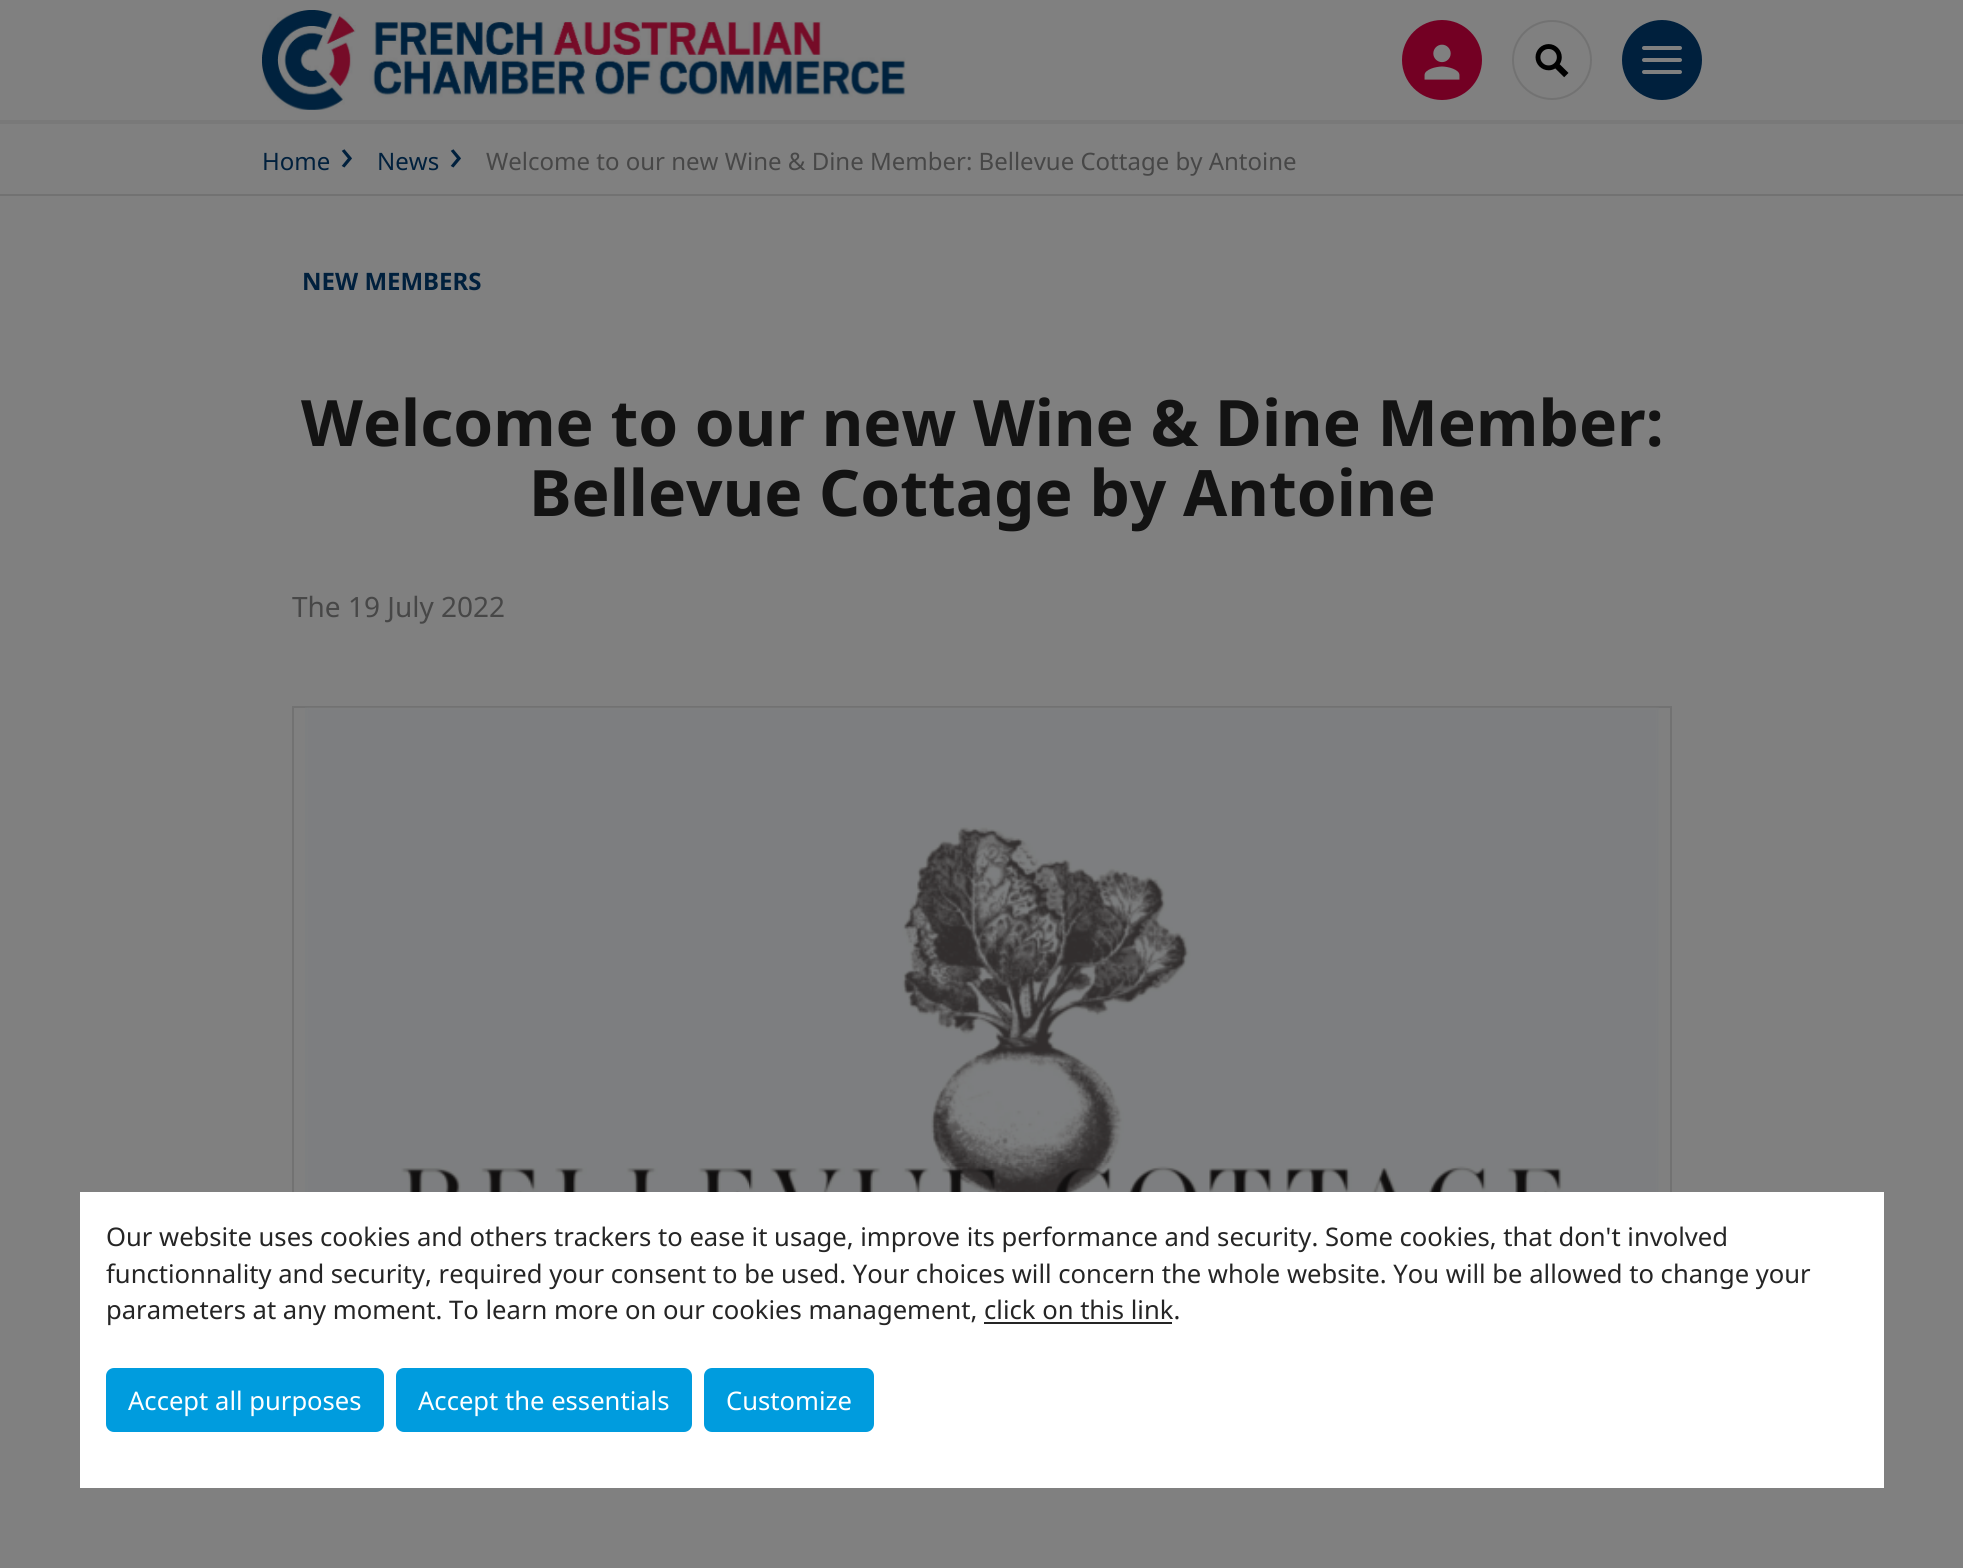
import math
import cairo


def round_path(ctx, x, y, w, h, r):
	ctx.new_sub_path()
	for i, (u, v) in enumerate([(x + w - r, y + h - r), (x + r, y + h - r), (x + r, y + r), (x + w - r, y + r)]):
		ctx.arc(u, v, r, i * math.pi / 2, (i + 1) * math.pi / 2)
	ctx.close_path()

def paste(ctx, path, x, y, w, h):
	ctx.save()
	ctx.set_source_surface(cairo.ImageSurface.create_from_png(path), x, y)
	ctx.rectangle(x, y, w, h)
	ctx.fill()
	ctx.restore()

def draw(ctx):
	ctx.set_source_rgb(0.502, 0.502, 0.502)
	ctx.paint()
	ctx.set_source_rgb(0.475, 0.475, 0.475)
	ctx.rectangle(0, 120, 1963, 4)
	ctx.fill()
	paste(ctx, 'media/1.png', 262, 10, 644, 100)
	ctx.set_source_rgb(0.451, 0, 0.137)
	ctx.arc(1442, 60, 40, 0, 2 * math.pi)
	ctx.fill()
	paste(ctx, 'media/2.png', 1424, 44, 36, 36)
	ctx.arc(1552, 60, 39, 0, 2 * math.pi)
	ctx.set_source_rgb(0.447, 0.447, 0.447)
	ctx.stroke()
	paste(ctx, 'media/3.png', 1535, 44, 34, 34)
	ctx.set_source_rgb(0, 0.125, 0.239)
	ctx.arc(1662, 60, 39, 0, 2 * math.pi)
	ctx.fill_preserve()
	ctx.stroke()
	ctx.set_source_rgb(0.502, 0.502, 0.502)
	round_path(ctx, 1642, 46, 40, 4, 2)
	ctx.fill()
	round_path(ctx, 1642, 58, 40, 4, 2)
	ctx.fill()
	round_path(ctx, 1642, 70, 40, 4, 2)
	ctx.fill()
	ctx.set_source_rgb(0.447, 0.447, 0.447)
	ctx.rectangle(0, 194, 1963, 2)
	ctx.fill()
	ctx.select_font_face('Noto Sans')
	ctx.set_font_size(24)
	ctx.set_source_rgb(0, 0.125, 0.239)
	ctx.move_to(262, 170)
	ctx.show_text('Home')
	ctx.set_font_size(44)
	ctx.move_to(340, 170)
	ctx.show_text('›')
	ctx.set_font_size(24)
	ctx.move_to(377, 170)
	ctx.show_text('News')
	ctx.set_font_size(44)
	ctx.move_to(449, 170)
	ctx.show_text('›')
	ctx.set_font_size(24)
	ctx.set_source_rgb(0.278, 0.278, 0.278)
	ctx.move_to(486, 170)
	ctx.show_text('Welcome to our new Wine & Dine Member: Bellevue Cottage by Antoine')
	ctx.select_font_face('Noto Sans', cairo.FONT_SLANT_NORMAL, cairo.FONT_WEIGHT_BOLD)
	ctx.set_source_rgb(0, 0.125, 0.239)
	ctx.move_to(302, 290)
	ctx.show_text('NEW MEMBERS')
	ctx.set_font_size(64)
	ctx.set_source_rgb(0.075, 0.075, 0.075)
	ctx.move_to(301, 446)
	ctx.show_text('Welcome to our new Wine & Dine Member:')
	ctx.move_to(529, 516)
	ctx.show_text('Bellevue Cottage by Antoine')
	ctx.select_font_face('Noto Sans')
	ctx.set_font_size(28)
	ctx.set_source_rgb(0.278, 0.278, 0.278)
	ctx.move_to(292, 617)
	ctx.show_text('The 19 July 2022')
	ctx.rectangle(293, 707, 1378, 776)
	ctx.set_source_rgb(0.447, 0.447, 0.447)
	ctx.stroke()
	paste(ctx, 'media/4.png', 305, 707, 1354, 485)
	ctx.set_source_rgb(1, 1, 1)
	ctx.rectangle(80, 1192, 1804, 296)
	ctx.fill()
	ctx.set_font_size(25.6)
	ctx.set_source_rgb(0.145, 0.145, 0.145)
	for x, y, s in [
		(106, 1246, 'Our website uses cookies and others trackers to ease it usage, improve its performance and security. Some cookies, that don\'t involved'),
		(106, 1283, 'functionnality and security, required your consent to be used. Your choices will concern the whole website. You will be allowed to change your'),
		(106, 1319, 'parameters at any moment. To learn more on our cookies management, click on this link.'),
	]:
		ctx.move_to(x, y)
		ctx.show_text(s)
	ctx.rectangle(984, 1322, 188, 2)
	ctx.fill()
	ctx.set_source_rgb(0, 0.612, 0.871)
	round_path(ctx, 106, 1368, 278, 64, 8)
	ctx.fill()
	ctx.set_source_rgb(1, 1, 1)
	ctx.move_to(128, 1410)
	ctx.show_text('Accept all purposes')
	ctx.set_source_rgb(0, 0.612, 0.871)
	round_path(ctx, 396, 1368, 296, 64, 8)
	ctx.fill()
	ctx.set_source_rgb(1, 1, 1)
	ctx.move_to(418, 1410)
	ctx.show_text('Accept the essentials')
	ctx.set_source_rgb(0, 0.612, 0.871)
	round_path(ctx, 704, 1368, 170, 64, 8)
	ctx.fill()
	ctx.set_source_rgb(1, 1, 1)
	ctx.move_to(726, 1410)
	ctx.show_text('Customize')


surface = cairo.ImageSurface(cairo.FORMAT_RGB24, 1963, 1568)
ctx = cairo.Context(surface)
options = cairo.FontOptions()
options.set_hint_metrics(cairo.HINT_METRICS_OFF)
options.set_hint_style(cairo.HINT_STYLE_NONE)
ctx.set_font_options(options)
ctx.set_miter_limit(4)
draw(ctx)
surface.write_to_png('image.png')
